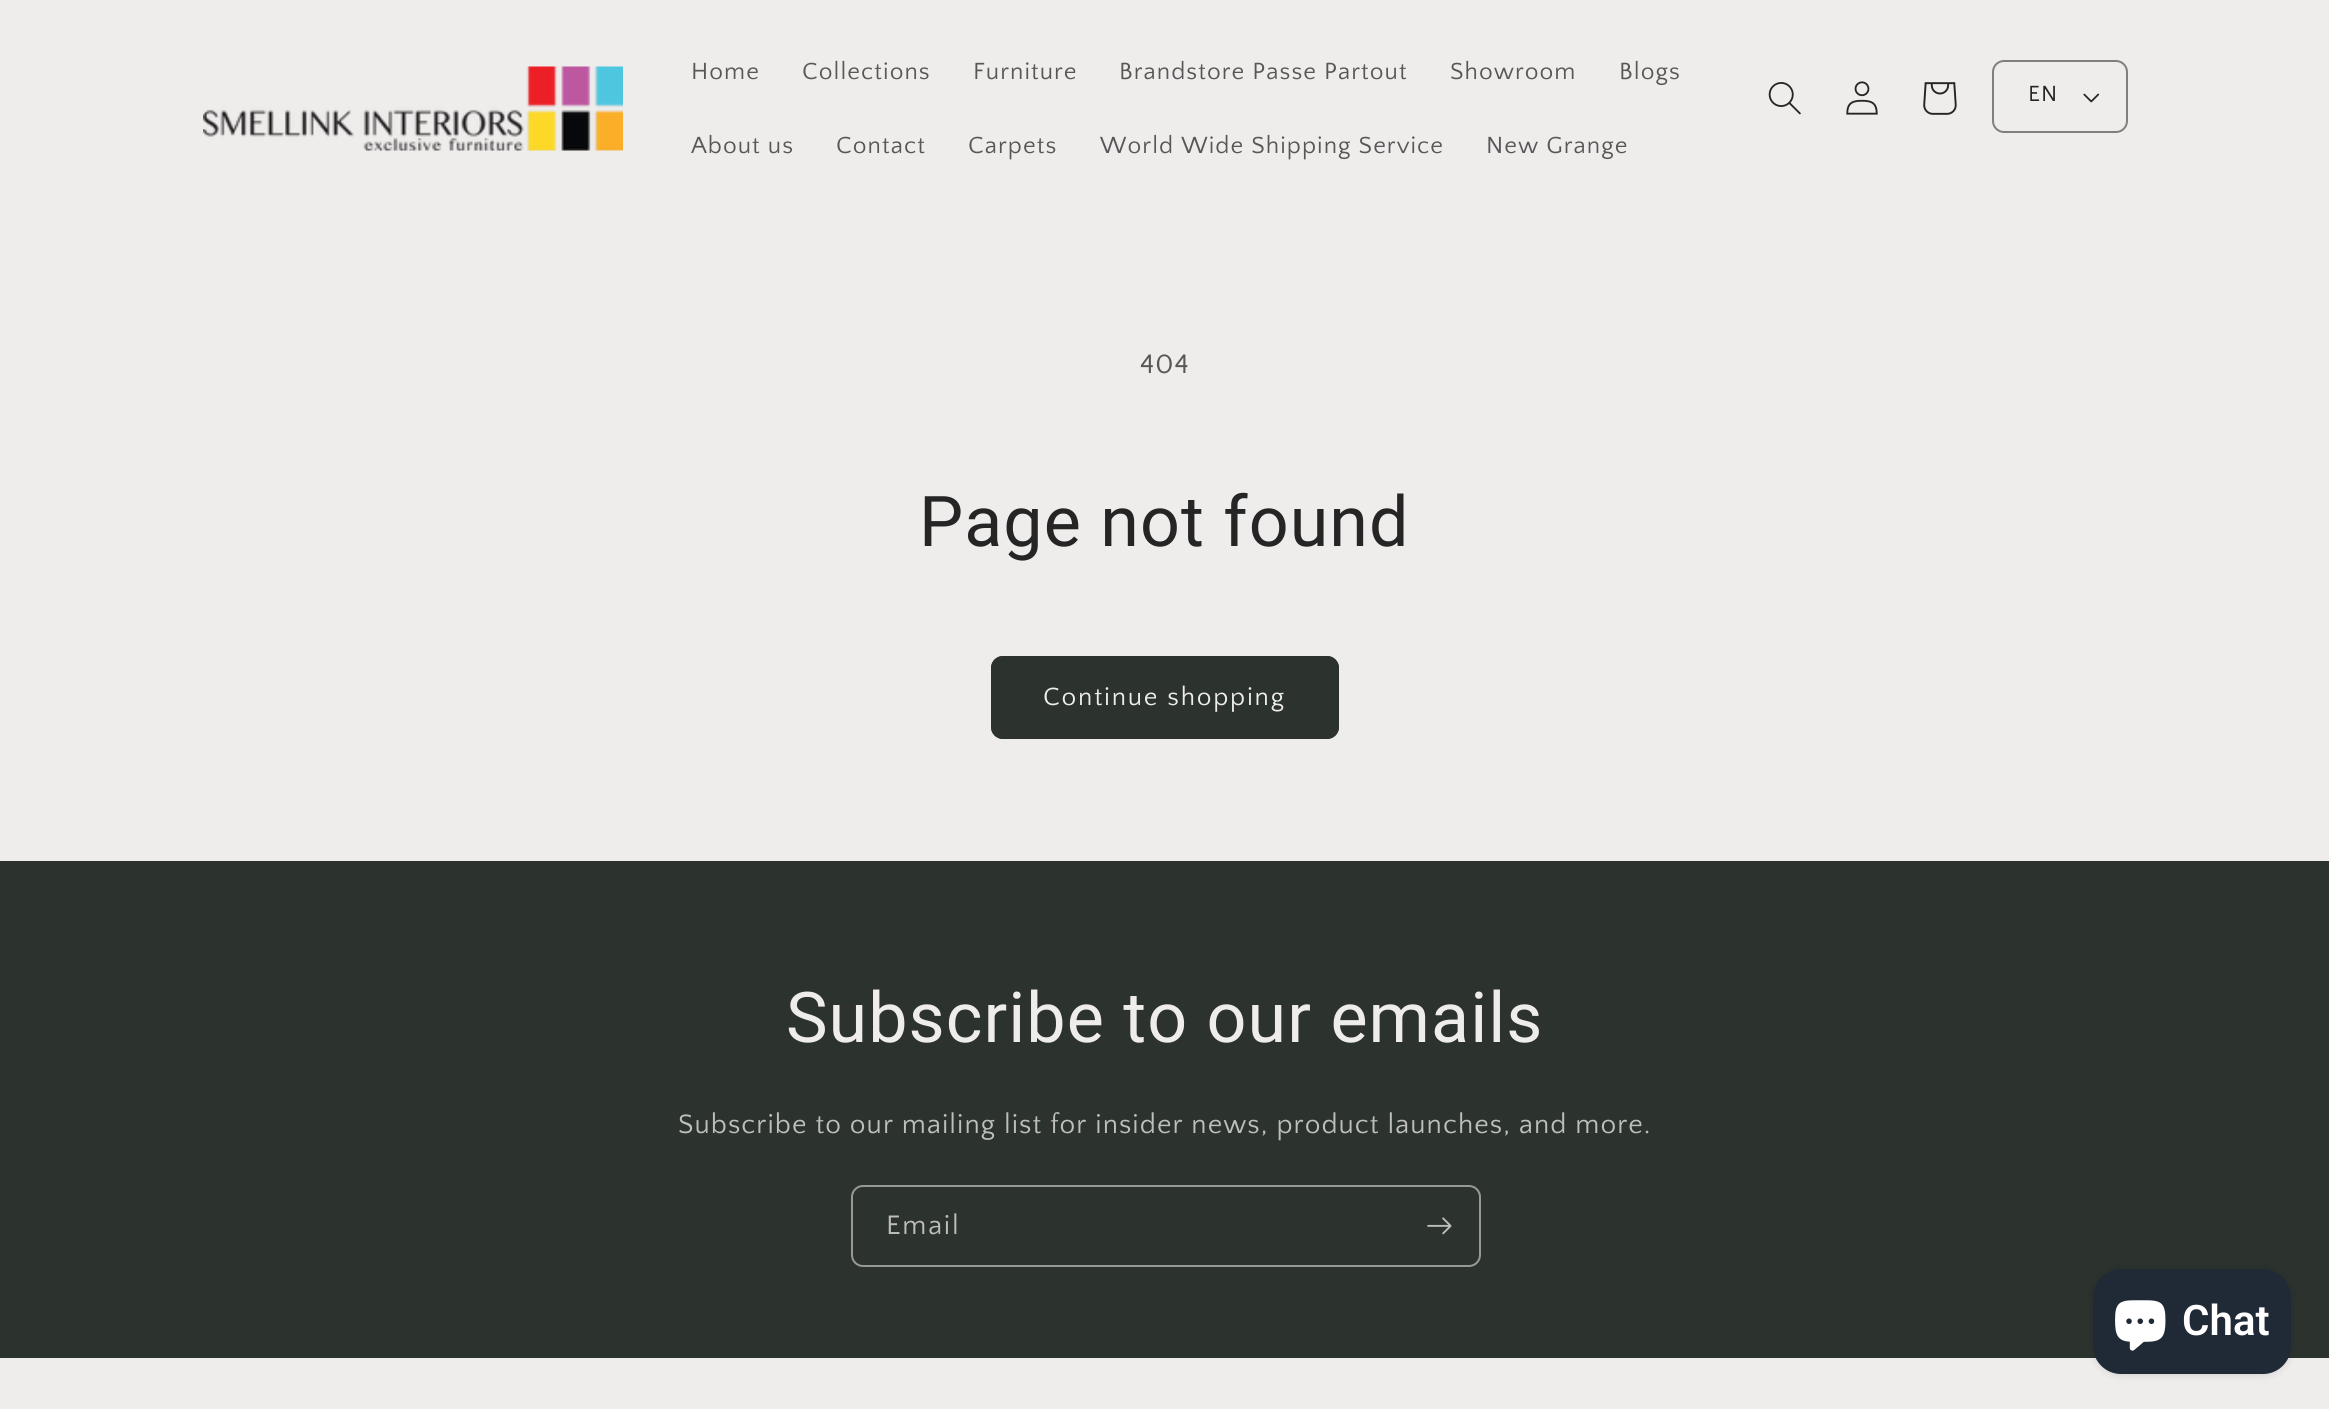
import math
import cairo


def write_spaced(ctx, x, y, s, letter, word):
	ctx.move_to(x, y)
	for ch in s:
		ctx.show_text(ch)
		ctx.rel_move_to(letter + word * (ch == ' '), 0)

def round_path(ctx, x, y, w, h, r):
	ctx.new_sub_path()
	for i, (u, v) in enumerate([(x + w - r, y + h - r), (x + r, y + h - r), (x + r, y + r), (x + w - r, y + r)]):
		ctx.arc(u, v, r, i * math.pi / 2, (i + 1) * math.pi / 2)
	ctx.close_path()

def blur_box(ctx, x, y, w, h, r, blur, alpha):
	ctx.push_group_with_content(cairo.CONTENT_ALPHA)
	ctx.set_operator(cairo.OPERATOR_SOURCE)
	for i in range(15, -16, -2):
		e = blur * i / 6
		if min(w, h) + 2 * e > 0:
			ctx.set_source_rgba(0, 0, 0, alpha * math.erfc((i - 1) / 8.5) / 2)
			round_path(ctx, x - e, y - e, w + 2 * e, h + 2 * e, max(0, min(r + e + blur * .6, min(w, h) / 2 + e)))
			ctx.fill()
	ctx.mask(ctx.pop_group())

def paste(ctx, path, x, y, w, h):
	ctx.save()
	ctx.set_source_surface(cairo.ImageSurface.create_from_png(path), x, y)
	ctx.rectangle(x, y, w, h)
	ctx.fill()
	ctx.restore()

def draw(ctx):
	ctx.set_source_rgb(0.937, 0.925, 0.925)
	ctx.paint()
	paste(ctx, 'media/1.png', 203, 66, 420, 85)
	ctx.select_font_face('Quattrocento Sans')
	ctx.set_font_size(24.5)
	ctx.set_source_rgb(0.345, 0.341, 0.341)
	for x, y, s in [
		(691, 79, 'Home'),
		(802, 79, 'Collections'),
		(973, 79, 'Furniture'),
		(1119, 79, 'Brandstore Passe Partout'),
		(1450, 79, 'Showroom'),
		(1619, 79, 'Blogs'),
		(691, 153, 'About us'),
		(836, 153, 'Contact'),
		(968, 153, 'Carpets'),
		(1100, 153, 'World Wide Shipping Service'),
		(1486, 153, 'New Grange'),
	]:
		write_spaced(ctx, x, y, s, 1.05, 0)
	paste(ctx, 'media/2.png', 1768, 82, 33, 33)
	paste(ctx, 'media/3.png', 1846, 81, 32, 34)
	paste(ctx, 'media/4.png', 1923, 82, 34, 33)
	paste(ctx, 'media/5.png', 2083, 93, 17, 10)
	round_path(ctx, 1993, 61, 134, 71, 11)
	ctx.set_source_rgb(0.502, 0.498, 0.498)
	ctx.stroke()
	ctx.set_font_size(23)
	ctx.set_source_rgb(0.145, 0.145, 0.145)
	write_spaced(ctx, 2028, 101, 'EN', 1, 0)
	ctx.set_font_size(28)
	ctx.set_source_rgb(0.345, 0.341, 0.341)
	write_spaced(ctx, 1140, 373, '404', 1.05, 0)
	ctx.select_font_face('Roboto')
	ctx.set_font_size(70)
	ctx.set_source_rgb(0.145, 0.145, 0.145)
	write_spaced(ctx, 919, 546, 'Page not found', 1.05, 0)
	ctx.set_source_rgb(0.173, 0.2, 0.184)
	round_path(ctx, 991, 656, 348, 83, 12)
	ctx.fill()
	round_path(ctx, 992, 657, 346, 81, 11)
	ctx.stroke()
	ctx.select_font_face('Quattrocento Sans')
	ctx.set_font_size(26.25)
	ctx.set_source_rgb(0.937, 0.925, 0.925)
	write_spaced(ctx, 1043, 705, 'Continue shopping', 1.75, 0)
	ctx.set_source_rgb(0.173, 0.2, 0.184)
	ctx.rectangle(0, 861, 2329, 497)
	ctx.fill()
	ctx.select_font_face('Roboto')
	ctx.set_font_size(70)
	ctx.set_source_rgb(0.937, 0.925, 0.925)
	write_spaced(ctx, 786, 1042, 'Subscribe to our emails', 1.05, 0)
	ctx.select_font_face('Quattrocento Sans')
	ctx.set_font_size(28)
	ctx.set_source_rgb(0.745, 0.745, 0.741)
	write_spaced(ctx, 678, 1133, 'Subscribe to our mailing list for insider news, product launches, and more.', 1.05, 0)
	round_path(ctx, 852, 1186, 628, 80, 11)
	ctx.set_source_rgb(0.592, 0.6, 0.592)
	ctx.stroke()
	ctx.set_source_rgb(0.745, 0.745, 0.741)
	write_spaced(ctx, 886, 1234, 'Email', 1.75, 0)
	paste(ctx, 'media/6.png', 1427, 1217, 25, 18)
	ctx.set_source_rgb(0, 0, 0)
	blur_box(ctx, 2093, 1269, 198, 105, 28, 4.5, 0.15)
	ctx.set_source_rgb(0.125, 0.165, 0.212)
	round_path(ctx, 2093, 1269, 198, 105, 28)
	ctx.fill()
	paste(ctx, 'media/7.png', 2115, 1300, 51, 51)
	ctx.select_font_face('Roboto SemiBold')
	ctx.set_font_size(42)
	ctx.set_source_rgb(1, 1, 1)
	ctx.move_to(2182, 1335)
	ctx.show_text('Chat')


surface = cairo.ImageSurface(cairo.FORMAT_RGB24, 2329, 1409)
ctx = cairo.Context(surface)
options = cairo.FontOptions()
options.set_hint_metrics(cairo.HINT_METRICS_OFF)
options.set_hint_style(cairo.HINT_STYLE_NONE)
ctx.set_font_options(options)
ctx.set_miter_limit(4)
draw(ctx)
surface.write_to_png('image.png')
